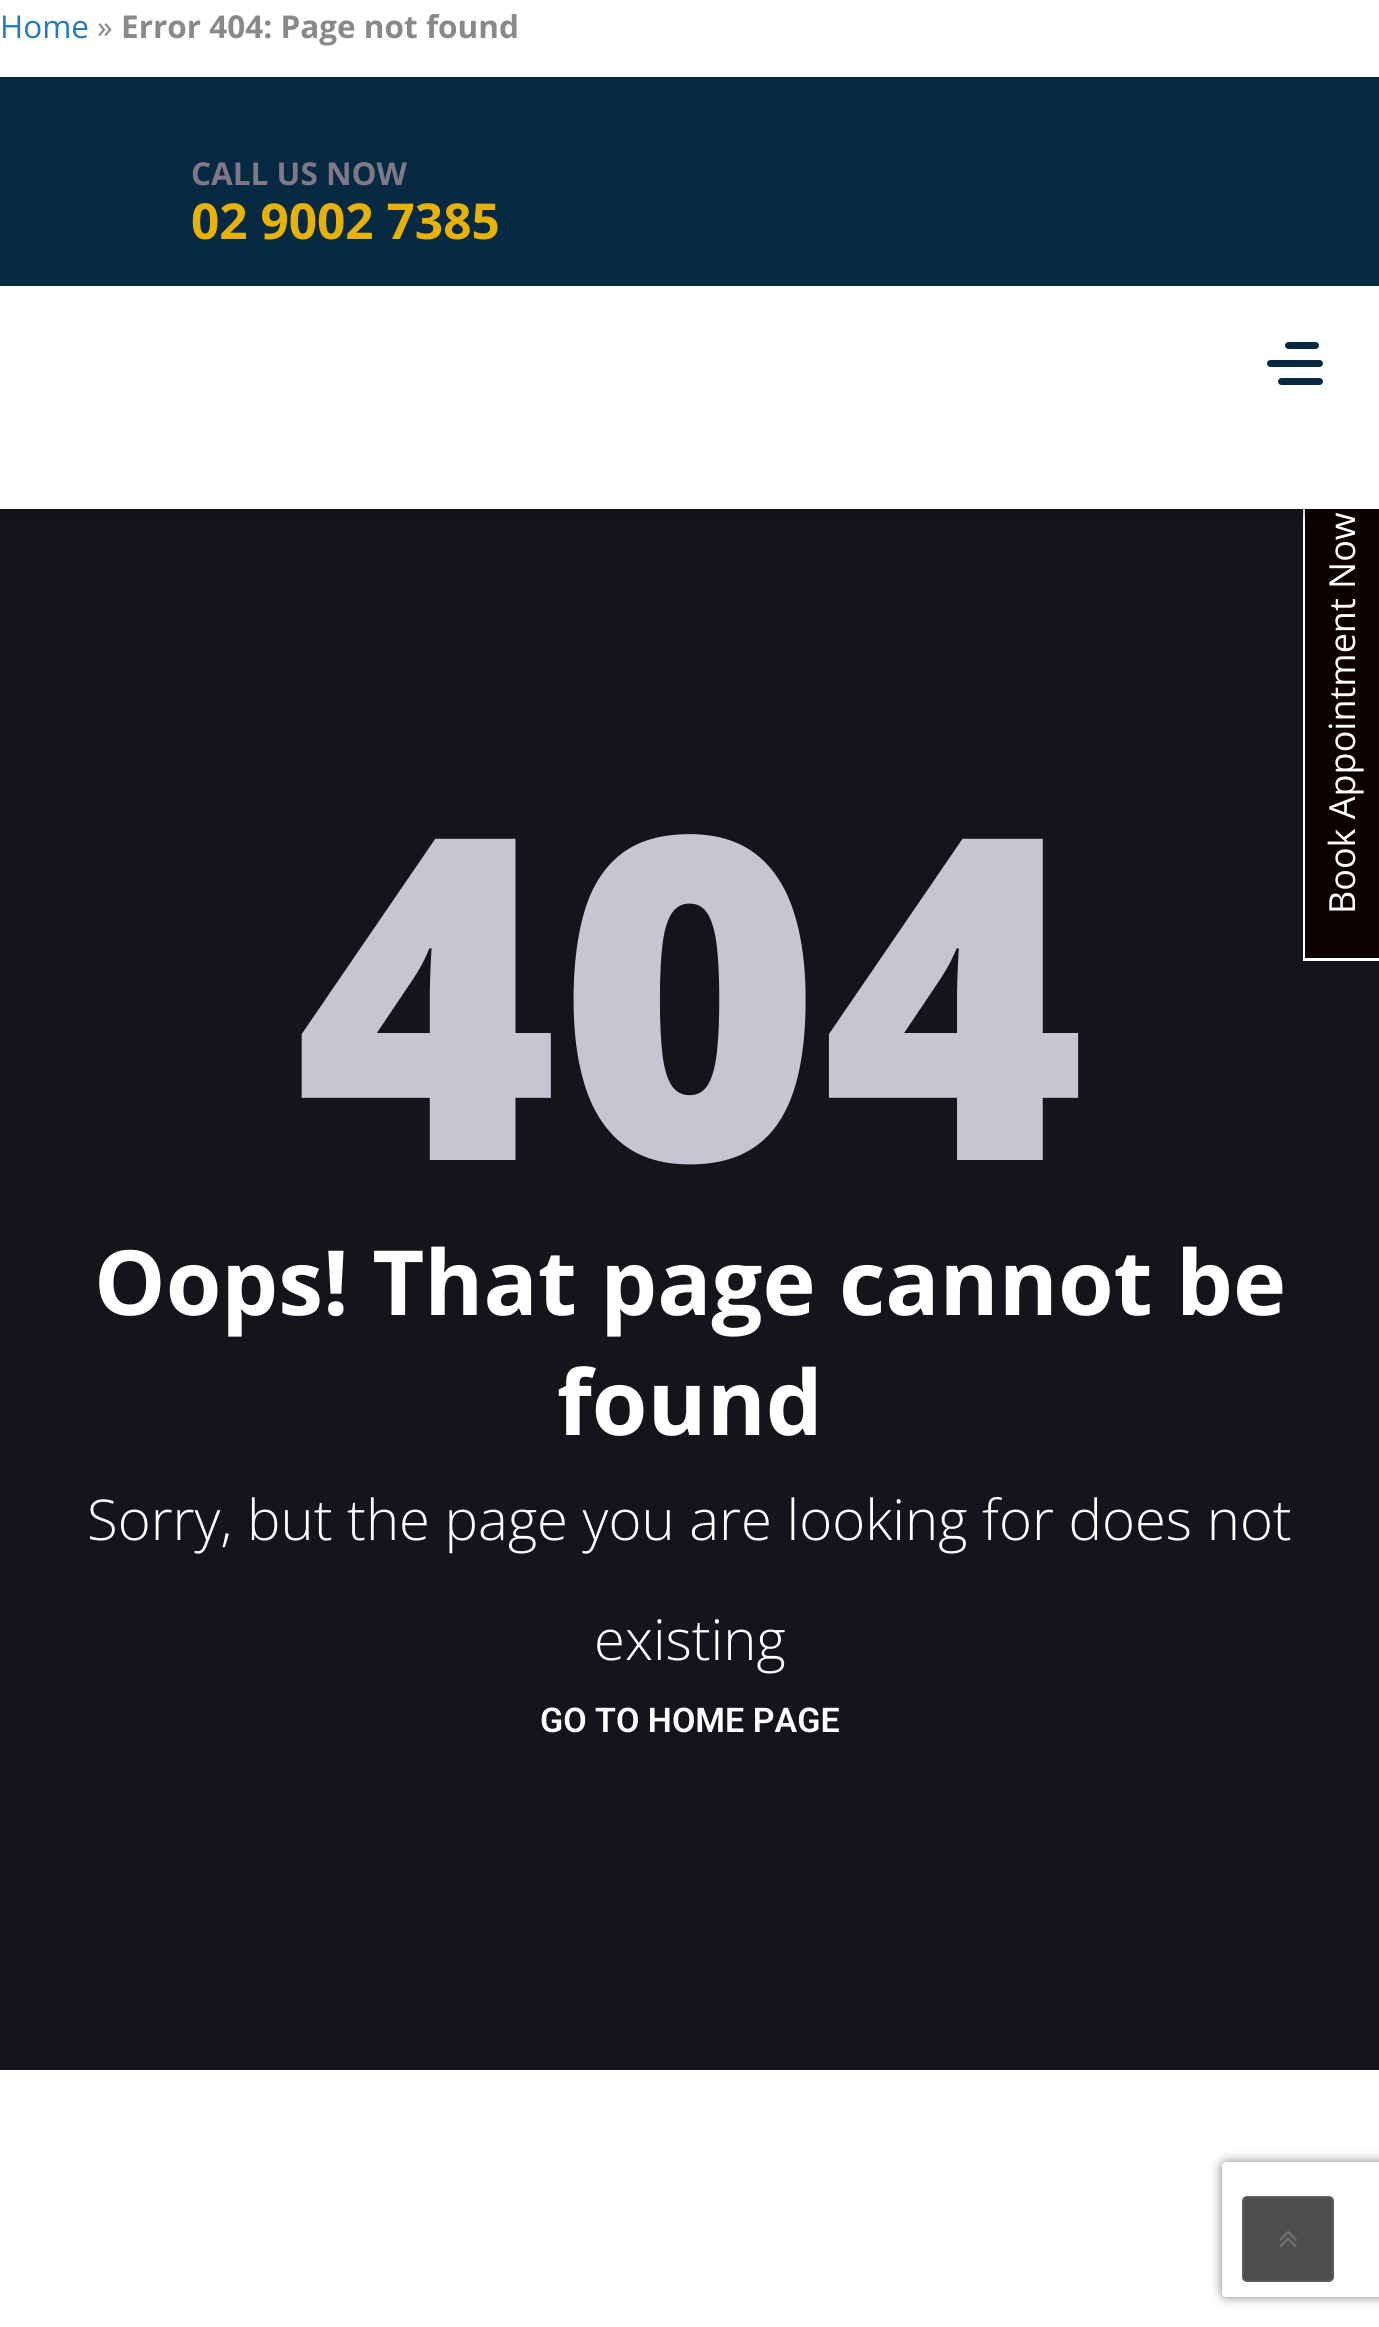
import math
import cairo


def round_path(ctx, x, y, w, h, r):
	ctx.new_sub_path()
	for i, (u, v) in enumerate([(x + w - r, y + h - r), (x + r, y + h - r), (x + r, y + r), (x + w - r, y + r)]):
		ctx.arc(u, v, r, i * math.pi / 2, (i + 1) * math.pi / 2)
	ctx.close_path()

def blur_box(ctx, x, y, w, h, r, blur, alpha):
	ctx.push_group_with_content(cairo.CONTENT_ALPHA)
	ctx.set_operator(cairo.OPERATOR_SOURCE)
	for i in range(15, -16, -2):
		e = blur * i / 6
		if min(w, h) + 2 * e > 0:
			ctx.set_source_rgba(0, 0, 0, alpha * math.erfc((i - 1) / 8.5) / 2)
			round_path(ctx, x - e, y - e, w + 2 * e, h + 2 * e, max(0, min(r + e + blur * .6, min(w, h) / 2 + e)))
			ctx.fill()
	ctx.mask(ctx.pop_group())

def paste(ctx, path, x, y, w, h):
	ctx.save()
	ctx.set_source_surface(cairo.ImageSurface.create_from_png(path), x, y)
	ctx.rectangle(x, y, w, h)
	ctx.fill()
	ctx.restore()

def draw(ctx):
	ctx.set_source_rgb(1, 1, 1)
	ctx.paint()
	ctx.select_font_face('Open Sans')
	ctx.set_font_size(31.5)
	ctx.set_source_rgb(0.133, 0.475, 0.745)
	ctx.move_to(0, 38)
	ctx.show_text('Home')
	ctx.set_source_rgb(0.537, 0.537, 0.537)
	ctx.move_to(97, 38)
	ctx.show_text('»')
	ctx.select_font_face('Open Sans', cairo.FONT_SLANT_NORMAL, cairo.FONT_WEIGHT_BOLD)
	ctx.move_to(121, 38)
	ctx.show_text('Error 404: Page not found')
	ctx.set_source_rgb(0.082, 0.082, 0.102)
	ctx.rectangle(0, 509, 1379, 1561)
	ctx.fill()
	ctx.set_source_rgb(0.047, 0, 0)
	ctx.rectangle(1305, 509, 74, 449)
	ctx.fill()
	ctx.set_source_rgb(1, 1, 1)
	ctx.rectangle(1303, 509, 2, 452)
	ctx.fill()
	ctx.save()
	ctx.rectangle(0, 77, 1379, 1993)
	ctx.clip()
	ctx.set_source_rgb(0, 0, 0)
	blur_box(ctx, 0, 83, 1379, 432, 0, 5.5, 0.25)
	ctx.restore()
	ctx.rectangle(0, 286, 1379, 223)
	ctx.fill()
	ctx.set_source_rgb(0.035, 0.161, 0.259)
	ctx.rectangle(0, 77, 1379, 209)
	ctx.fill()
	ctx.set_source_rgb(0.49, 0.475, 0.529)
	ctx.move_to(191, 185)
	ctx.show_text('CALL US NOW')
	ctx.set_font_size(49.5)
	ctx.set_source_rgb(0.906, 0.698, 0.027)
	ctx.move_to(191, 239)
	ctx.show_text('02 9002 7385')
	ctx.set_source_rgb(0.035, 0.161, 0.259)
	round_path(ctx, 1267, 360, 56, 7, 3.5)
	ctx.fill()
	round_path(ctx, 1285, 342, 34, 7, 3.5)
	ctx.fill()
	round_path(ctx, 1278, 378, 45, 7, 3.5)
	ctx.fill()
	ctx.set_source_rgb(1, 1, 1)
	ctx.rectangle(1303, 958, 76, 3)
	ctx.fill()
	ctx.select_font_face('Open Sans')
	ctx.set_font_size(36)
	ctx.save()
	ctx.translate(1355, 914)
	ctx.rotate(-90 * math.pi / 180)
	ctx.move_to(0, 0)
	ctx.show_text('Book Appointment Now')
	ctx.restore()
	ctx.select_font_face('Open Sans ExtraBold')
	ctx.set_font_size(450)
	ctx.set_source_rgb(0.773, 0.776, 0.82)
	ctx.move_to(294, 1160)
	ctx.show_text('404')
	ctx.select_font_face('Open Sans', cairo.FONT_SLANT_NORMAL, cairo.FONT_WEIGHT_BOLD)
	ctx.set_font_size(90)
	ctx.set_source_rgb(1, 1, 1)
	ctx.move_to(94, 1315)
	ctx.show_text('Oops! That page cannot be')
	ctx.move_to(557, 1435)
	ctx.show_text('found')
	ctx.select_font_face('Open Sans Light')
	ctx.set_font_size(56.25)
	ctx.move_to(87, 1540)
	ctx.show_text('Sorry, but the page you are looking for does not')
	ctx.move_to(594, 1660)
	ctx.show_text('existing')
	ctx.select_font_face('Roboto SemiBold')
	ctx.set_font_size(34)
	ctx.move_to(540, 1732)
	ctx.show_text('GO TO HOME PAGE')
	ctx.save()
	ctx.set_fill_rule(cairo.FILL_RULE_EVEN_ODD)
	ctx.new_path()
	ctx.move_to(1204, 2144)
	ctx.line_to(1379, 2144)
	ctx.line_to(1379, 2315)
	ctx.line_to(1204, 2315)
	ctx.close_path()
	ctx.move_to(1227, 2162)
	ctx.line_to(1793, 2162)
	ctx.curve_to(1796, 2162, 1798, 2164, 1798, 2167)
	ctx.line_to(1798, 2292)
	ctx.curve_to(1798, 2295, 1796, 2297, 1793, 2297)
	ctx.line_to(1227, 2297)
	ctx.curve_to(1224, 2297, 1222, 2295, 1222, 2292)
	ctx.line_to(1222, 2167)
	ctx.curve_to(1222, 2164, 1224, 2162, 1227, 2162)
	ctx.close_path()
	ctx.clip()
	ctx.set_source_rgb(0.502, 0.502, 0.502)
	blur_box(ctx, 1222, 2162, 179, 135, 5, 5.5, 1)
	ctx.restore()
	ctx.set_source_rgb(0.306, 0.306, 0.306)
	round_path(ctx, 1243, 2197, 90, 84, 4)
	ctx.fill_preserve()
	ctx.set_source_rgb(0.361, 0.361, 0.361)
	ctx.stroke()
	paste(ctx, 'media/1.png', 1279, 2230, 18, 18)


surface = cairo.ImageSurface(cairo.FORMAT_RGB24, 1379, 2327)
ctx = cairo.Context(surface)
options = cairo.FontOptions()
options.set_hint_metrics(cairo.HINT_METRICS_OFF)
options.set_hint_style(cairo.HINT_STYLE_NONE)
ctx.set_font_options(options)
ctx.set_miter_limit(4)
draw(ctx)
surface.write_to_png('image.png')
